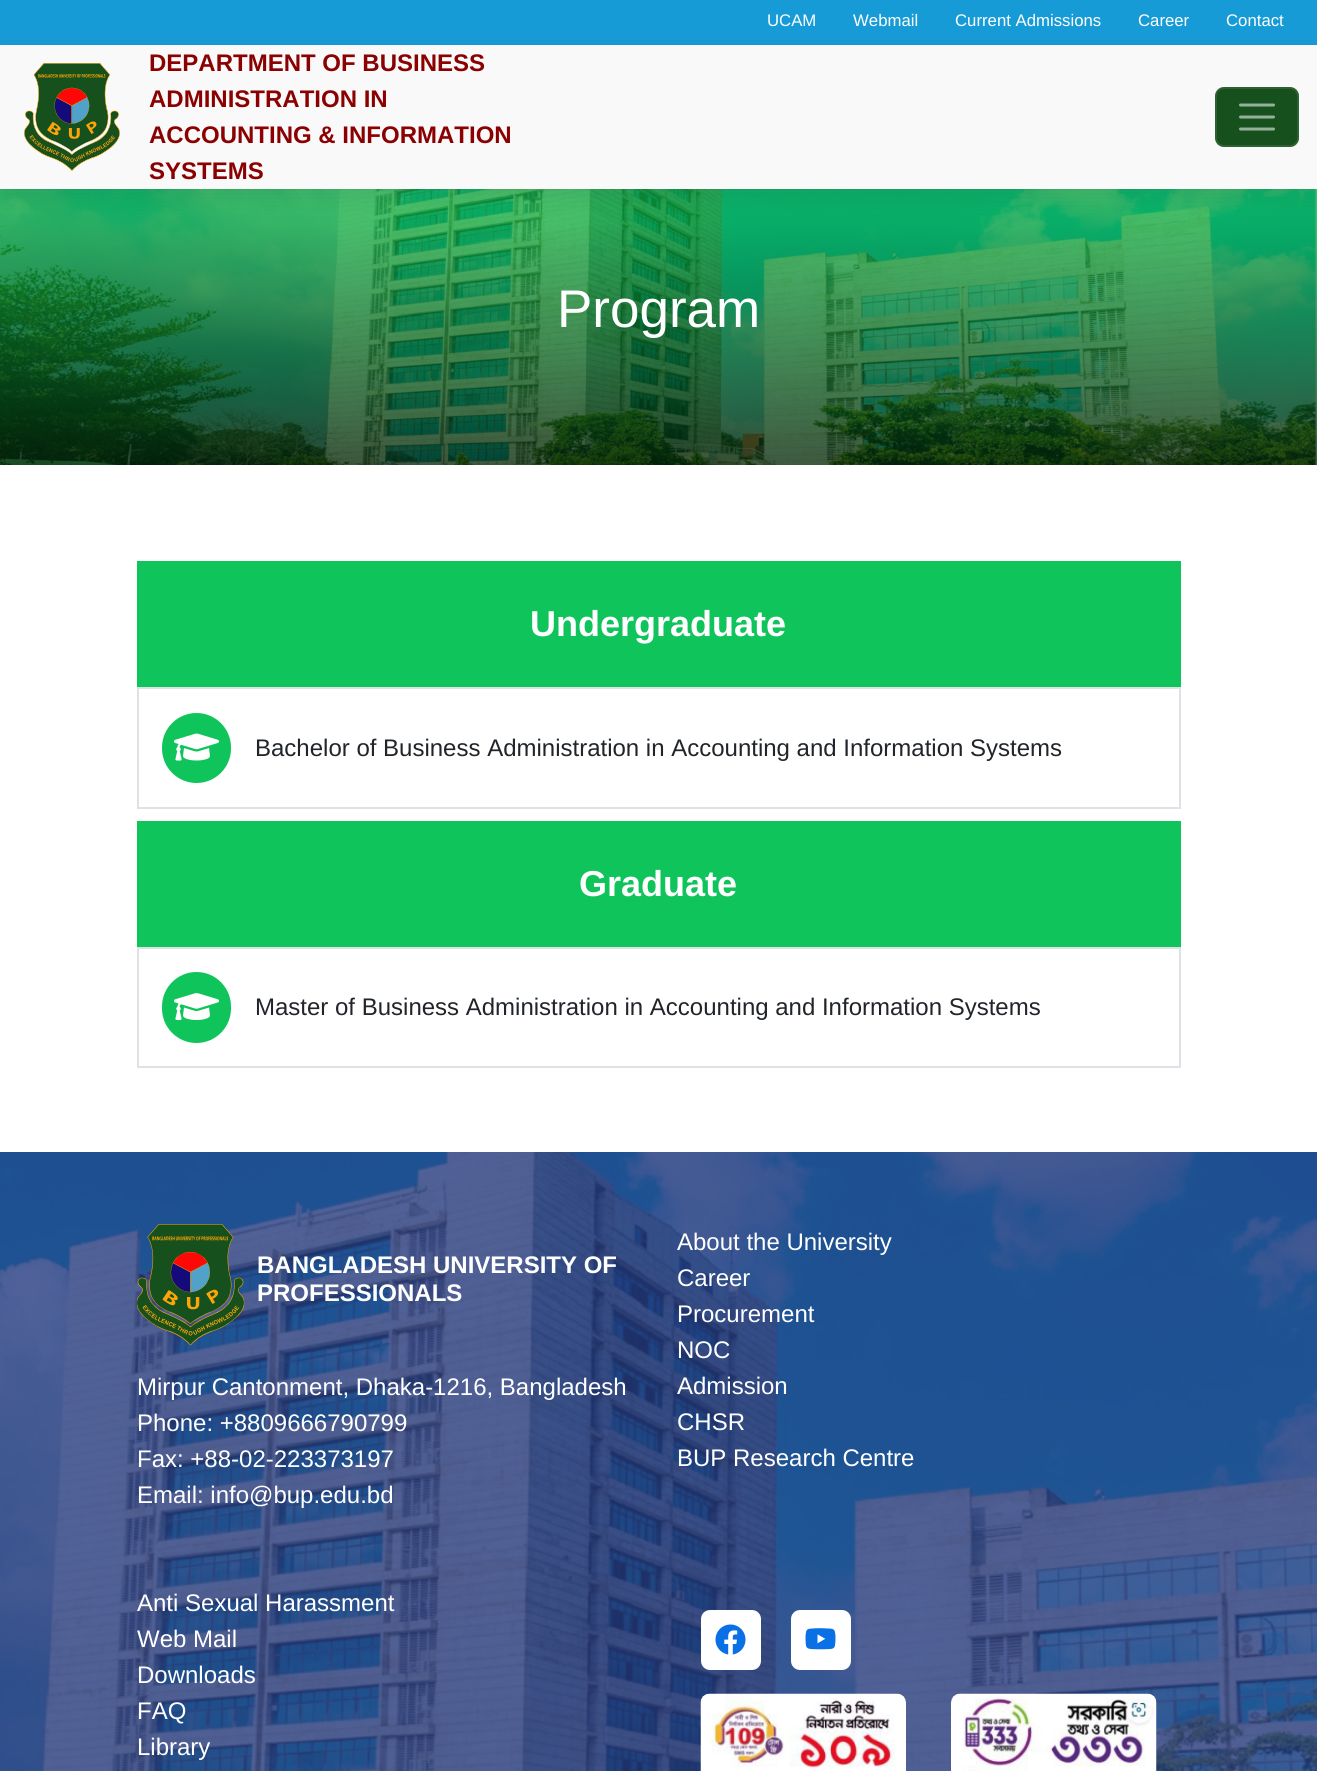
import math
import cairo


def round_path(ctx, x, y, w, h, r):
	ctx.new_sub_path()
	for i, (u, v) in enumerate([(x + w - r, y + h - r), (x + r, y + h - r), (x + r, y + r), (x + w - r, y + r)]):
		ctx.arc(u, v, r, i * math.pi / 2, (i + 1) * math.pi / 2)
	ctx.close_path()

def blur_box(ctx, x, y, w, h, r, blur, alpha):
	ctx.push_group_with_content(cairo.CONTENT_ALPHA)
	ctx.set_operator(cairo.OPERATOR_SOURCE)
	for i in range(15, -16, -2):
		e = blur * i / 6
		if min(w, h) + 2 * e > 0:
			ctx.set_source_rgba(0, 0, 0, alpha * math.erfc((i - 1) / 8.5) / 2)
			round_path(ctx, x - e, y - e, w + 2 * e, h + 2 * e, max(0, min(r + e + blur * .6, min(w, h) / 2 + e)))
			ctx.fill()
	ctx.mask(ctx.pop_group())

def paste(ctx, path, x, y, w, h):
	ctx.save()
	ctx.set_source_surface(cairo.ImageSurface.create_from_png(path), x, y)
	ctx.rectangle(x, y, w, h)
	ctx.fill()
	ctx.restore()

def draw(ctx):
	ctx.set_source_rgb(1, 1, 1)
	ctx.paint()
	paste(ctx, 'media/2.png', 0, 189, 1317, 276)
	ctx.set_source_rgb(0.471, 0.471, 0.471)
	blur_box(ctx, 0, 2, 1317, 189, 0, 2, 0.1)
	ctx.set_source_rgb(0.09, 0.608, 0.843)
	ctx.rectangle(0, 0, 1317, 45)
	ctx.fill()
	ctx.select_font_face('Liberation Sans')
	ctx.set_font_size(16.75)
	ctx.set_source_rgb(1, 1, 1)
	for x, y, s in [
		(767, 26, 'UCAM'),
		(853, 26, 'Webmail'),
		(955, 26, 'Current Admissions'),
		(1138, 26, 'Career'),
		(1226, 26, 'Contact'),
	]:
		ctx.move_to(x, y)
		ctx.show_text(s)
	ctx.set_source_rgb(0.129, 0.145, 0.161)
	blur_box(ctx, 0, 57, 1317, 144, 0, 12, 0.15)
	ctx.set_source_rgb(0.973, 0.976, 0.98)
	ctx.rectangle(0, 45, 1317, 144)
	ctx.fill()
	paste(ctx, 'media/1.png', 24, 63, 96, 108)
	ctx.select_font_face('Liberation Sans', cairo.FONT_SLANT_NORMAL, cairo.FONT_WEIGHT_BOLD)
	ctx.set_font_size(24)
	ctx.set_source_rgb(0.545, 0.004, 0.004)
	for x, y, s in [
		(149, 71, 'DEPARTMENT OF BUSINESS'),
		(149, 107, 'ADMINISTRATION IN'),
		(149, 143, 'ACCOUNTING & INFORMATION'),
		(149, 179, 'SYSTEMS'),
	]:
		ctx.move_to(x, y)
		ctx.show_text(s)
	ctx.set_source_rgb(0.086, 0.314, 0.114)
	round_path(ctx, 1215, 87, 84, 60, 9)
	ctx.fill()
	round_path(ctx, 1216, 88, 82, 58, 8)
	ctx.set_source_rgba(1, 1, 1, 0.1)
	ctx.stroke()
	ctx.new_path()
	ctx.move_to(1240.5, 105)
	ctx.line_to(1273.5, 105)
	ctx.move_to(1240.5, 117)
	ctx.line_to(1273.5, 117)
	ctx.move_to(1240.5, 129)
	ctx.line_to(1273.5, 129)
	ctx.set_source_rgb(0.588, 0.69, 0.6)
	ctx.set_line_width(3)
	ctx.set_line_cap(cairo.LINE_CAP_ROUND)
	ctx.stroke()
	ctx.select_font_face('Liberation Sans')
	ctx.set_font_size(53)
	ctx.set_source_rgb(1, 1, 1)
	ctx.move_to(557, 327)
	ctx.show_text('Program')
	ctx.set_source_rgb(0.063, 0.769, 0.361)
	ctx.rectangle(137, 561, 1044, 126)
	ctx.fill()
	ctx.select_font_face('Liberation Sans', cairo.FONT_SLANT_NORMAL, cairo.FONT_WEIGHT_BOLD)
	ctx.set_font_size(36)
	ctx.set_source_rgb(1, 1, 1)
	ctx.move_to(530, 636)
	ctx.show_text('Undergraduate')
	ctx.rectangle(138, 688, 1042, 120)
	ctx.set_source_rgb(0.871, 0.886, 0.902)
	ctx.set_line_width(2)
	ctx.set_line_cap(cairo.LINE_CAP_BUTT)
	ctx.stroke()
	ctx.set_source_rgb(0.063, 0.769, 0.361)
	round_path(ctx, 162, 713, 69, 70, 34.5)
	ctx.fill()
	paste(ctx, 'media/3.png', 174, 733, 45, 28)
	ctx.select_font_face('Liberation Sans')
	ctx.set_font_size(24)
	ctx.set_source_rgb(0.129, 0.145, 0.161)
	ctx.move_to(255, 756)
	ctx.show_text('Bachelor of Business Administration in Accounting and Information Systems')
	ctx.set_source_rgb(0.063, 0.769, 0.361)
	ctx.rectangle(137, 821, 1044, 126)
	ctx.fill()
	ctx.select_font_face('Liberation Sans', cairo.FONT_SLANT_NORMAL, cairo.FONT_WEIGHT_BOLD)
	ctx.set_font_size(36)
	ctx.set_source_rgb(1, 1, 1)
	ctx.move_to(579, 896)
	ctx.show_text('Graduate')
	ctx.rectangle(138, 948, 1042, 119)
	ctx.set_source_rgb(0.871, 0.886, 0.902)
	ctx.stroke()
	ctx.set_source_rgb(0.063, 0.769, 0.361)
	round_path(ctx, 162, 972, 69, 71, 34.5)
	ctx.fill()
	paste(ctx, 'media/4.png', 174, 993, 45, 27)
	ctx.select_font_face('Liberation Sans')
	ctx.set_font_size(24)
	ctx.set_source_rgb(0.129, 0.145, 0.161)
	ctx.move_to(255, 1015)
	ctx.show_text('Master of Business Administration in Accounting and Information Systems')
	paste(ctx, 'media/5.png', 0, 1152, 1317, 619)
	paste(ctx, 'media/6.png', 137, 1224, 108, 122)
	ctx.select_font_face('Liberation Sans', cairo.FONT_SLANT_NORMAL, cairo.FONT_WEIGHT_BOLD)
	ctx.set_source_rgb(1, 1, 1)
	ctx.move_to(257, 1273)
	ctx.show_text('BANGLADESH UNIVERSITY OF')
	ctx.move_to(257, 1301)
	ctx.show_text('PROFESSIONALS')
	ctx.select_font_face('Liberation Sans')
	for x, y, s in [
		(137, 1395, 'Mirpur Cantonment, Dhaka-1216, Bangladesh'),
		(137, 1431, 'Phone: +8809666790799'),
		(137, 1467, 'Fax: +88-02-223373197'),
		(137, 1503, 'Email: info@bup.edu.bd'),
		(677, 1250, 'About the University'),
		(677, 1286, 'Career'),
		(677, 1322, 'Procurement'),
		(677, 1358, 'NOC'),
		(677, 1394, 'Admission'),
		(677, 1430, 'CHSR'),
		(677, 1466, 'BUP Research Centre'),
		(137, 1611, 'Anti Sexual Harassment'),
		(137, 1647, 'Web Mail'),
		(137, 1683, 'Downloads'),
		(137, 1719, 'FAQ'),
		(137, 1755, 'Library'),
	]:
		ctx.move_to(x, y)
		ctx.show_text(s)
	round_path(ctx, 701, 1610, 60, 60, 9)
	ctx.fill()
	paste(ctx, 'media/7.png', 715, 1624, 31, 31)
	round_path(ctx, 791, 1610, 60, 60, 9)
	ctx.fill()
	paste(ctx, 'media/8.png', 805, 1628, 31, 22)
	paste(ctx, 'media/9.png', 700, 1693, 206, 78)
	paste(ctx, 'media/10.png', 951, 1693, 206, 78)


surface = cairo.ImageSurface(cairo.FORMAT_RGB24, 1317, 1771)
ctx = cairo.Context(surface)
options = cairo.FontOptions()
options.set_hint_metrics(cairo.HINT_METRICS_OFF)
options.set_hint_style(cairo.HINT_STYLE_NONE)
ctx.set_font_options(options)
ctx.set_miter_limit(4)
draw(ctx)
surface.write_to_png('image.png')
